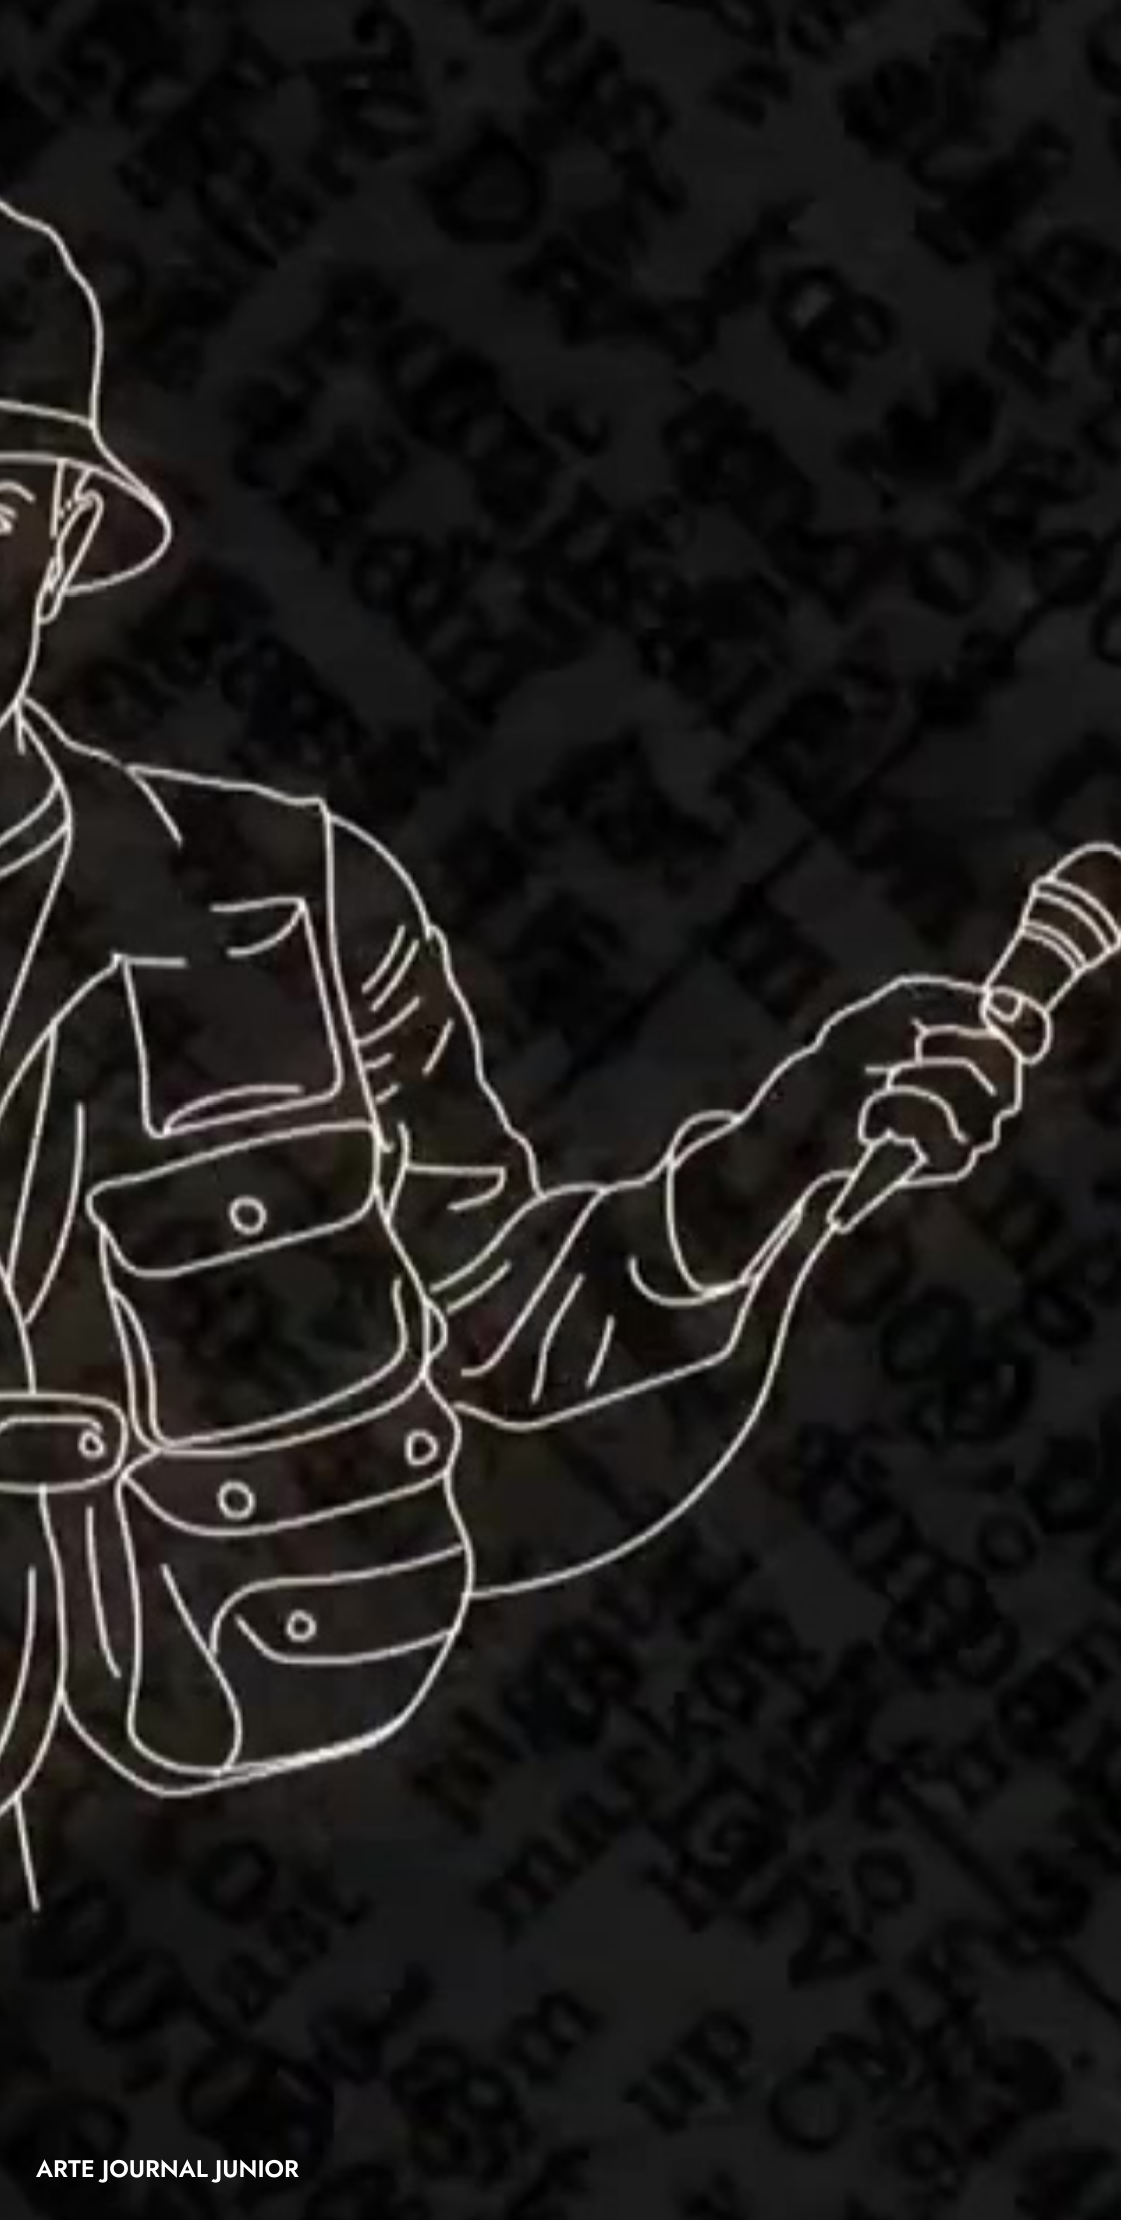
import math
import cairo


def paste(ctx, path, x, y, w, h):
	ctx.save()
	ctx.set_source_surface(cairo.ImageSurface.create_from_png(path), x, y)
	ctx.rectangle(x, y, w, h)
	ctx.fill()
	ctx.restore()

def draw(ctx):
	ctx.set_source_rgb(1, 1, 1)
	ctx.paint()
	paste(ctx, 'media/1.png', 0, 0, 1121, 2220)
	ctx.select_font_face('Jost SemiBold')
	ctx.set_font_size(24)
	ctx.set_source_rgb(1, 1, 1)
	ctx.move_to(36, 2177)
	ctx.show_text('ARTE JOURNAL JUNIOR')


surface = cairo.ImageSurface(cairo.FORMAT_RGB24, 1121, 2220)
ctx = cairo.Context(surface)
options = cairo.FontOptions()
options.set_hint_metrics(cairo.HINT_METRICS_OFF)
options.set_hint_style(cairo.HINT_STYLE_NONE)
ctx.set_font_options(options)
ctx.set_miter_limit(4)
draw(ctx)
surface.write_to_png('image.png')
